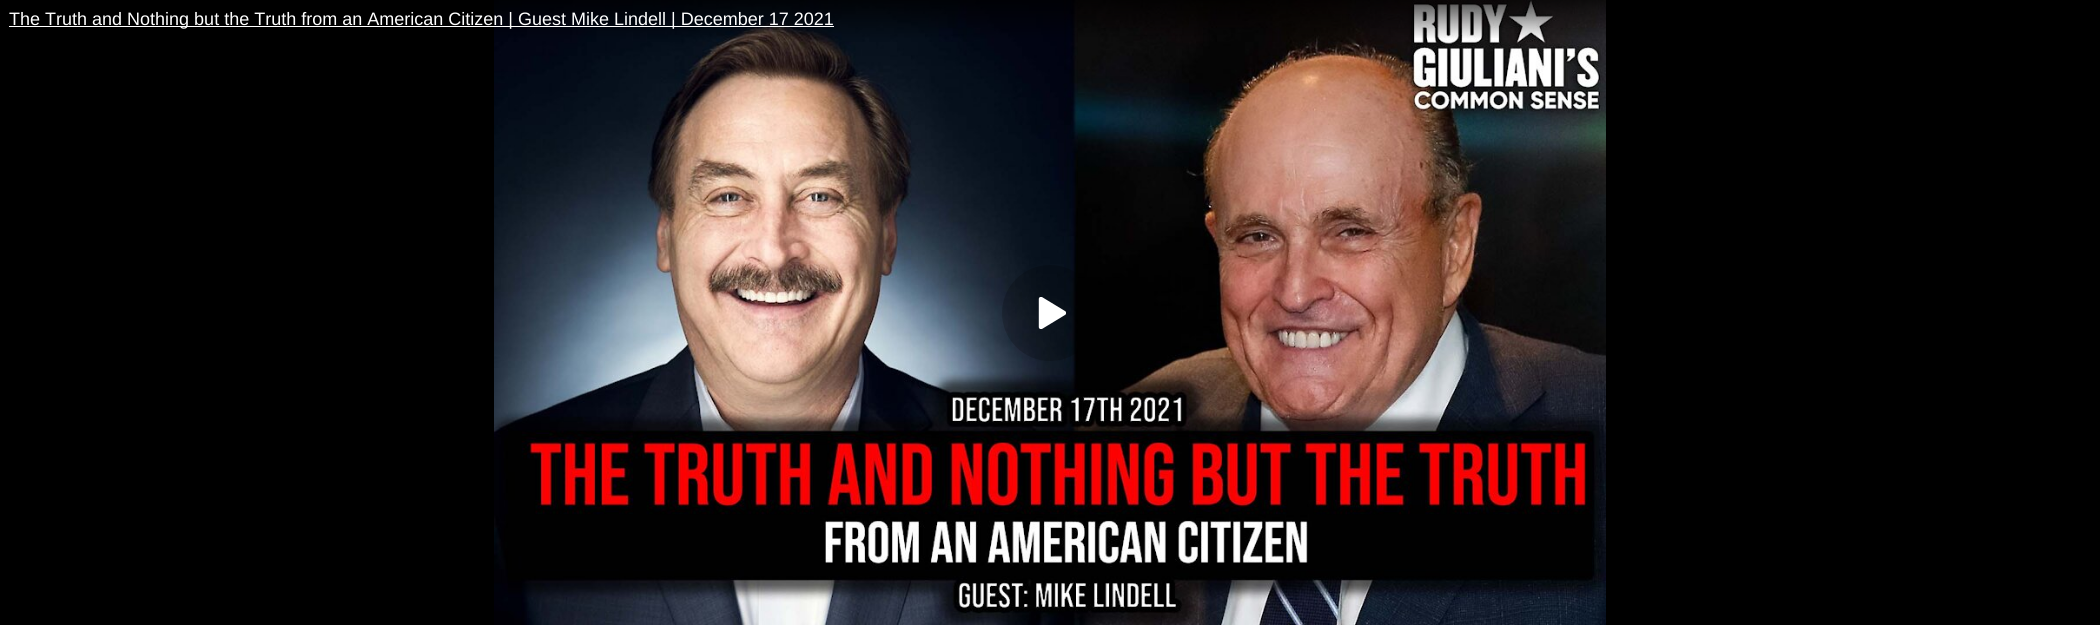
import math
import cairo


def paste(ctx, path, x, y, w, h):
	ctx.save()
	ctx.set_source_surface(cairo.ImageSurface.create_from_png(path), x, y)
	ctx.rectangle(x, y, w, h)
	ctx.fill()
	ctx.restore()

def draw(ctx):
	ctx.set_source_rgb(0, 0, 0)
	ctx.paint()
	paste(ctx, 'media/1.png', 494, 0, 1112, 625)
	gradient = cairo.LinearGradient(1050, 0, 1050, 39)
	gradient.add_color_stop_rgba(0, 0, 0, 0, 0.7)
	gradient.add_color_stop_rgba(1, 0, 0, 0, 0)
	ctx.set_source(gradient)
	ctx.rectangle(494, 0, 1112, 38)
	ctx.fill()
	ctx.set_source_rgb(1, 1, 1)
	ctx.rectangle(9, 26, 825, 1)
	ctx.fill()
	ctx.select_font_face('Liberation Sans')
	ctx.set_font_size(18)
	ctx.move_to(9, 25)
	ctx.show_text('The Truth and Nothing but the Truth from an American Citizen | Guest Mike Lindell | December 17 2021')
	ctx.set_source_rgba(0, 0, 0, 0.2)
	ctx.new_path()
	ctx.arc(1050, 313, 48, 0, 2 * math.pi)
	ctx.fill()
	ctx.set_source_rgb(1, 1, 1)
	ctx.new_path()
	ctx.move_to(1064, 313)
	ctx.line_to(1041, 299)
	ctx.line_to(1041, 327)
	ctx.close_path()
	ctx.fill()
	ctx.save()
	ctx.rectangle(1034, 297, 32, 32)
	ctx.clip()
	ctx.new_path()
	ctx.move_to(1064, 313)
	ctx.line_to(1041, 299)
	ctx.line_to(1041, 327)
	ctx.close_path()
	ctx.set_line_width(4.4)
	ctx.set_line_join(cairo.LINE_JOIN_ROUND)
	ctx.stroke()
	ctx.restore()


surface = cairo.ImageSurface(cairo.FORMAT_RGB24, 2100, 625)
ctx = cairo.Context(surface)
options = cairo.FontOptions()
options.set_hint_metrics(cairo.HINT_METRICS_OFF)
options.set_hint_style(cairo.HINT_STYLE_NONE)
ctx.set_font_options(options)
ctx.set_miter_limit(4)
draw(ctx)
surface.write_to_png('image.png')
